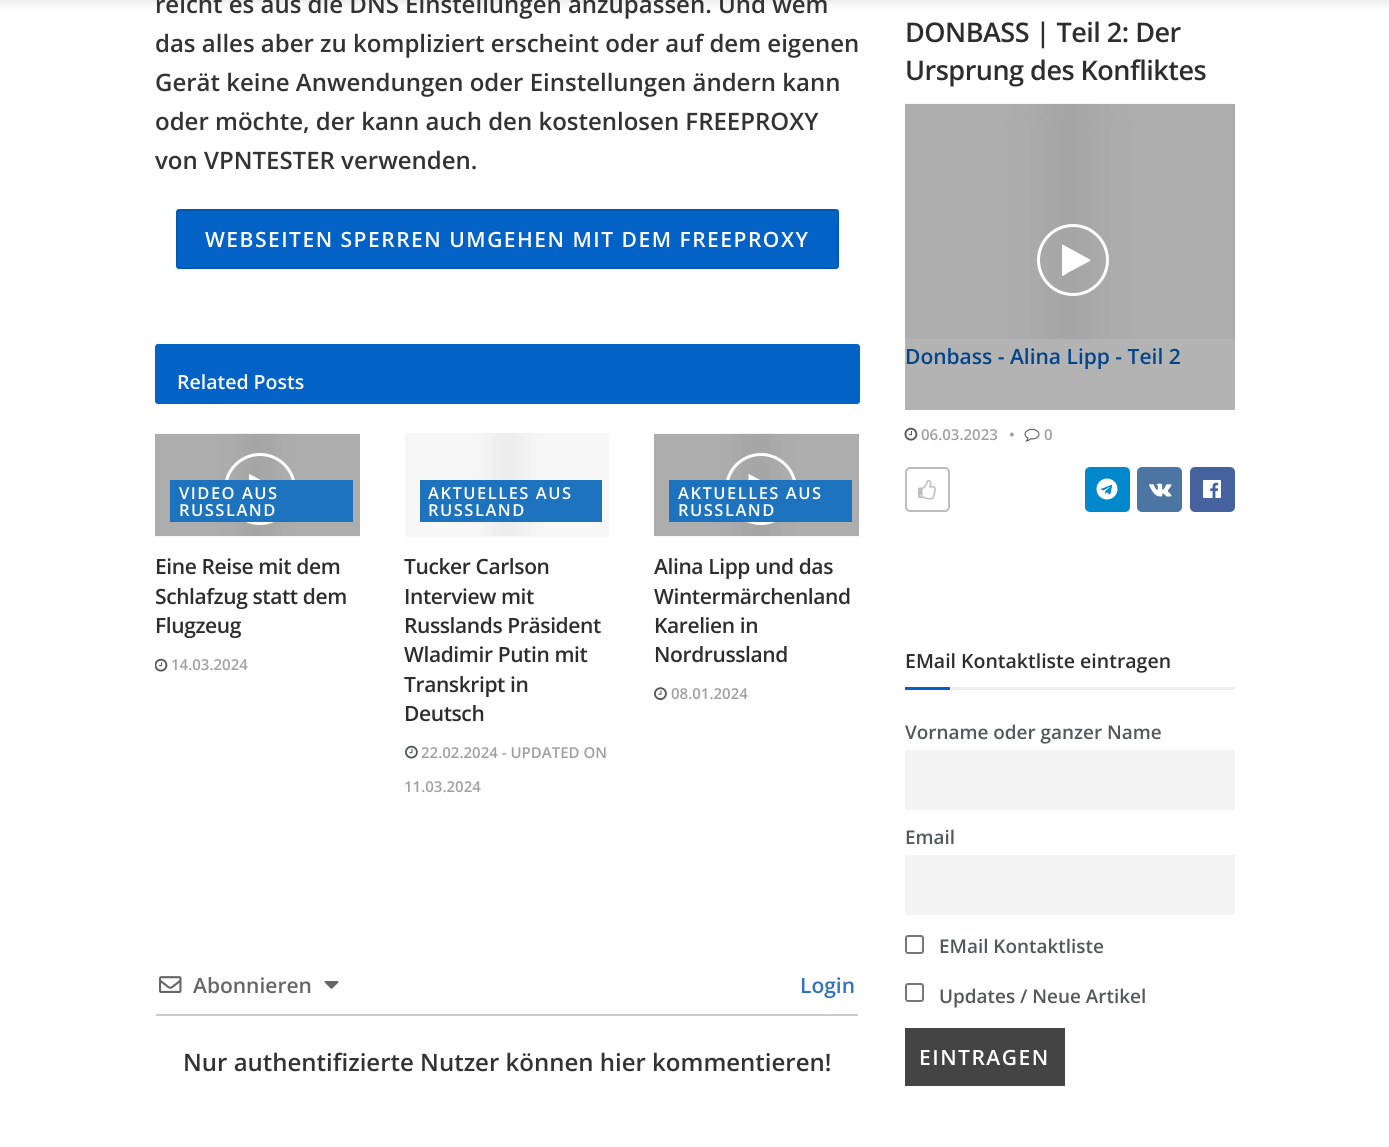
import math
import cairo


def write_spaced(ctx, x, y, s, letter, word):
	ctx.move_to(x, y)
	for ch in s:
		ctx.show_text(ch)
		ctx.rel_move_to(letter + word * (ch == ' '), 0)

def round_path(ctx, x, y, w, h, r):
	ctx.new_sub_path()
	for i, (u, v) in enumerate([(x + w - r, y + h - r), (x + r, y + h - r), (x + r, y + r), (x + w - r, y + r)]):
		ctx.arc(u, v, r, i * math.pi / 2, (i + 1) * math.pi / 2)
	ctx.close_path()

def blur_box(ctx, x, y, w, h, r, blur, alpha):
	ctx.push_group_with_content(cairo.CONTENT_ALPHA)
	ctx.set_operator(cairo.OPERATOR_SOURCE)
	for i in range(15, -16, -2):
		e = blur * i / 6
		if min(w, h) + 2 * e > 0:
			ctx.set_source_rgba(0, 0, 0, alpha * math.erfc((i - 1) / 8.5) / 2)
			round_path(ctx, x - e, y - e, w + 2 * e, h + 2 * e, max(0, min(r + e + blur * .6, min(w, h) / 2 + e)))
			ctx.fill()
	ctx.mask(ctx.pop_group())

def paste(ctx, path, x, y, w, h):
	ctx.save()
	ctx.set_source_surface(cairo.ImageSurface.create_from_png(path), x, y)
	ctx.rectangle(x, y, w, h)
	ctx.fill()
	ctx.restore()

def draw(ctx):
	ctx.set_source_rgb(1, 1, 1)
	ctx.paint()
	ctx.set_source_rgb(0.702, 0.702, 0.702)
	ctx.rectangle(905, 339, 330, 71)
	ctx.fill()
	ctx.set_source_rgb(0, 0, 0)
	blur_box(ctx, 0, -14, 1389, 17, 0, 4.5, 0.1)
	ctx.select_font_face('Open Sans SemiBold')
	ctx.set_font_size(24)
	ctx.set_source_rgb(0.2, 0.2, 0.2)
	for x, y, s in [
		(155, 13, 'reicht es aus die DNS Einstellungen anzupassen. Und wem'),
		(155, 52, 'das alles aber zu kompliziert erscheint oder auf dem eigenen'),
		(155, 91, 'Gerät keine Anwendungen oder Einstellungen ändern kann'),
		(155, 130, 'oder möchte, der kann auch den kostenlosen FREEPROXY'),
		(155, 169, 'von VPNTESTER verwenden.'),
	]:
		ctx.move_to(x, y)
		ctx.show_text(s)
	ctx.set_source_rgb(0.012, 0.384, 0.776)
	round_path(ctx, 176, 209, 663, 60, 3)
	ctx.fill()
	round_path(ctx, 177, 210, 661, 58, 2)
	ctx.set_source_rgba(0, 0, 0, 0.1)
	ctx.stroke()
	ctx.set_font_size(21)
	ctx.set_source_rgb(1, 1, 1)
	write_spaced(ctx, 205, 247, 'WEBSEITEN SPERREN UMGEHEN MIT DEM FREEPROXY', 1.5, 0)
	ctx.set_source_rgb(0.012, 0.384, 0.776)
	round_path(ctx, 155, 344, 705, 60, 3)
	ctx.fill()
	ctx.set_font_size(19.5)
	ctx.set_source_rgb(1, 1, 1)
	ctx.move_to(177, 389)
	ctx.show_text('Related Posts')
	ctx.set_source_rgb(0.969, 0.969, 0.969)
	ctx.rectangle(155, 536, 205, 1)
	ctx.fill()
	paste(ctx, 'media/1.png', 155, 433, 205, 103)
	ctx.arc(260, 489, 34.5, 0, 2 * math.pi)
	ctx.set_source_rgb(1, 1, 1)
	ctx.set_line_width(3)
	ctx.stroke()
	ctx.new_path()
	ctx.move_to(277, 490.5)
	ctx.line_to(254.5, 502.5)
	ctx.curve_to(254, 503, 250, 506, 249, 505)
	ctx.line_to(249, 474.5)
	ctx.line_to(249.5, 474)
	ctx.line_to(277, 489)
	ctx.line_to(277.5, 489.5)
	ctx.close_path()
	ctx.fill()
	ctx.set_source_rgb(0.118, 0.451, 0.745)
	ctx.rectangle(170, 480, 183, 42)
	ctx.fill()
	ctx.set_font_size(16.5)
	ctx.set_source_rgb(1, 1, 1)
	write_spaced(ctx, 179, 499, 'VIDEO AUS', 1.5, 0)
	write_spaced(ctx, 179, 516, 'RUSSLAND', 1.5, 0)
	ctx.set_font_size(21)
	ctx.set_source_rgb(0.176, 0.176, 0.176)
	for x, y, s in [
		(155, 574, 'Eine Reise mit dem'),
		(155, 604, 'Schlafzug statt dem'),
		(155, 633, 'Flugzeug'),
	]:
		write_spaced(ctx, x, y, s, -0.4, 0)
	paste(ctx, 'media/2.png', 155, 658, 13, 14)
	ctx.set_font_size(15)
	ctx.set_source_rgb(0.627, 0.627, 0.627)
	ctx.move_to(171, 670)
	ctx.show_text('14.03.2024')
	ctx.set_source_rgb(0.969, 0.969, 0.969)
	ctx.rectangle(405, 536, 204, 1)
	ctx.fill()
	paste(ctx, 'media/3.png', 405, 433, 204, 103)
	ctx.set_source_rgb(0.118, 0.451, 0.745)
	ctx.rectangle(420, 480, 182, 42)
	ctx.fill()
	ctx.set_font_size(16.5)
	ctx.set_source_rgb(1, 1, 1)
	write_spaced(ctx, 428, 499, 'AKTUELLES AUS', 1.5, 0)
	write_spaced(ctx, 428, 516, 'RUSSLAND', 1.5, 0)
	ctx.set_font_size(21)
	ctx.set_source_rgb(0.176, 0.176, 0.176)
	for x, y, s in [
		(404, 574, 'Tucker Carlson'),
		(404, 604, 'Interview mit'),
		(404, 633, 'Russlands Präsident'),
		(404, 662, 'Wladimir Putin mit'),
		(404, 692, 'Transkript in'),
		(404, 721, 'Deutsch'),
	]:
		write_spaced(ctx, x, y, s, -0.4, 0)
	paste(ctx, 'media/4.png', 405, 745, 13, 14)
	ctx.set_font_size(15)
	ctx.set_source_rgb(0.627, 0.627, 0.627)
	ctx.move_to(421, 758)
	ctx.show_text('22.02.2024 - UPDATED ON')
	ctx.move_to(404, 792)
	ctx.show_text('11.03.2024')
	ctx.set_source_rgb(0.969, 0.969, 0.969)
	ctx.rectangle(654, 434, 206, 103)
	ctx.fill()
	paste(ctx, 'media/5.png', 654, 433, 205, 103)
	ctx.arc(761, 489, 34.5, 0, 2 * math.pi)
	ctx.set_source_rgb(1, 1, 1)
	ctx.stroke()
	ctx.new_path()
	ctx.move_to(776.5, 490.5)
	ctx.line_to(754, 502.5)
	ctx.curve_to(753.5, 503, 749.5, 506, 748.5, 505)
	ctx.line_to(748.5, 474.5)
	ctx.line_to(749, 474)
	ctx.line_to(776.5, 489)
	ctx.line_to(777, 489.5)
	ctx.close_path()
	ctx.fill()
	ctx.set_source_rgb(0.118, 0.451, 0.745)
	ctx.rectangle(669, 480, 183, 42)
	ctx.fill()
	ctx.set_font_size(16.5)
	ctx.set_source_rgb(1, 1, 1)
	write_spaced(ctx, 678, 499, 'AKTUELLES AUS', 1.5, 0)
	write_spaced(ctx, 678, 516, 'RUSSLAND', 1.5, 0)
	ctx.set_font_size(21)
	ctx.set_source_rgb(0.176, 0.176, 0.176)
	for x, y, s in [
		(654, 574, 'Alina Lipp und das'),
		(654, 604, 'Wintermärchenland'),
		(654, 633, 'Karelien in'),
		(654, 662, 'Nordrussland'),
	]:
		write_spaced(ctx, x, y, s, -0.4, 0)
	paste(ctx, 'media/6.png', 654, 687, 13, 14)
	ctx.set_font_size(15)
	ctx.set_source_rgb(0.627, 0.627, 0.627)
	ctx.move_to(671, 699)
	ctx.show_text('08.01.2024')
	ctx.set_source_rgb(0.8, 0.8, 0.8)
	ctx.rectangle(156, 1014, 702, 2)
	ctx.fill()
	paste(ctx, 'media/7.png', 159, 976, 23, 17)
	ctx.set_font_size(21)
	ctx.set_source_rgb(0.4, 0.4, 0.4)
	ctx.move_to(193, 993)
	ctx.show_text('Abonnieren')
	paste(ctx, 'media/8.png', 324, 981, 15, 8)
	ctx.set_source_rgb(0.196, 0.447, 0.749)
	ctx.move_to(800, 993)
	ctx.show_text('Login')
	ctx.set_font_size(24)
	ctx.set_source_rgb(0.2, 0.2, 0.2)
	ctx.move_to(183, 1071)
	ctx.show_text('Nur authentifizierte Nutzer können hier kommentieren!')
	ctx.set_font_size(27)
	ctx.set_source_rgb(0.176, 0.176, 0.176)
	write_spaced(ctx, 905, 42, 'DONBASS | Teil 2: Der', -0.5, 0)
	write_spaced(ctx, 905, 80, 'Ursprung des Konfliktes', -0.5, 0)
	ctx.set_source_rgb(0.678, 0.678, 0.678)
	ctx.rectangle(905, 104, 330, 235)
	ctx.fill()
	paste(ctx, 'media/9.png', 904, 103, 330, 236)
	ctx.arc(1073, 260, 34.5, 0, 2 * math.pi)
	ctx.set_source_rgb(1, 1, 1)
	ctx.stroke()
	ctx.new_path()
	ctx.move_to(1090, 261)
	ctx.line_to(1067.5, 273)
	ctx.curve_to(1067, 273.5, 1063, 276.5, 1062, 275.5)
	ctx.line_to(1062, 245)
	ctx.line_to(1062.5, 244.5)
	ctx.line_to(1090, 259.5)
	ctx.line_to(1090.5, 260)
	ctx.close_path()
	ctx.fill()
	ctx.set_font_size(21)
	ctx.set_source_rgb(0.008, 0.271, 0.545)
	ctx.move_to(905, 364)
	ctx.show_text('Donbass - Alina Lipp - Teil 2')
	paste(ctx, 'media/10.png', 904, 427, 14, 14)
	ctx.set_font_size(15)
	ctx.set_source_rgb(0.627, 0.627, 0.627)
	ctx.move_to(921, 440)
	ctx.show_text('06.03.2023')
	ctx.move_to(1009, 440)
	ctx.show_text('•')
	paste(ctx, 'media/11.png', 1024, 428, 16, 14)
	ctx.move_to(1044, 440)
	ctx.show_text('0')
	round_path(ctx, 906, 468, 43, 43, 4)
	ctx.set_source_rgb(0.741, 0.741, 0.741)
	ctx.set_line_width(2)
	ctx.stroke()
	paste(ctx, 'media/12.png', 918, 480, 18, 20)
	ctx.set_source_rgb(0, 0.533, 0.8)
	round_path(ctx, 1085, 467, 45, 45, 5)
	ctx.fill()
	paste(ctx, 'media/13.png', 1096, 478, 22, 22)
	ctx.set_source_rgb(0.298, 0.459, 0.639)
	round_path(ctx, 1137, 467, 45, 45, 5)
	ctx.fill()
	paste(ctx, 'media/14.png', 1149, 483, 23, 14)
	ctx.set_source_rgb(0.271, 0.384, 0.624)
	round_path(ctx, 1190, 467, 45, 45, 5)
	ctx.fill()
	paste(ctx, 'media/15.png', 1203, 480, 18, 18)
	ctx.set_source_rgb(0.933, 0.933, 0.933)
	ctx.rectangle(950, 687, 285, 3)
	ctx.fill()
	ctx.set_font_size(19.5)
	ctx.set_source_rgb(0.176, 0.176, 0.176)
	ctx.move_to(905, 668)
	ctx.show_text('EMail Kontaktliste eintragen')
	ctx.set_source_rgb(0.012, 0.384, 0.776)
	ctx.rectangle(905, 687, 45, 3)
	ctx.fill()
	ctx.set_font_size(18.9)
	ctx.set_source_rgb(0.325, 0.345, 0.361)
	ctx.move_to(905, 739)
	ctx.show_text('Vorname oder ganzer Name')
	ctx.set_source_rgb(0.957, 0.957, 0.957)
	ctx.rectangle(905, 750, 330, 60)
	ctx.fill()
	ctx.set_source_rgb(0.325, 0.345, 0.361)
	ctx.move_to(905, 844)
	ctx.show_text('Email')
	ctx.set_source_rgb(0.957, 0.957, 0.957)
	ctx.rectangle(905, 855, 330, 60)
	ctx.fill()
	round_path(ctx, 906, 936, 17, 17, 2)
	ctx.set_source_rgb(0.463, 0.463, 0.463)
	ctx.stroke()
	ctx.set_source_rgb(0.325, 0.345, 0.361)
	ctx.move_to(939, 953)
	ctx.show_text('EMail Kontaktliste')
	round_path(ctx, 906, 984, 17, 17, 2)
	ctx.set_source_rgb(0.463, 0.463, 0.463)
	ctx.stroke()
	ctx.set_source_rgb(0.325, 0.345, 0.361)
	ctx.move_to(939, 1003)
	ctx.show_text('Updates / Neue Artikel')
	ctx.set_source_rgb(0.267, 0.267, 0.267)
	ctx.rectangle(905, 1028, 160, 58)
	ctx.fill()
	ctx.set_font_size(21)
	ctx.set_source_rgb(1, 1, 1)
	write_spaced(ctx, 919, 1065, 'EINTRAGEN', 1.5, 0)


surface = cairo.ImageSurface(cairo.FORMAT_RGB24, 1389, 1147)
ctx = cairo.Context(surface)
options = cairo.FontOptions()
options.set_hint_metrics(cairo.HINT_METRICS_OFF)
options.set_hint_style(cairo.HINT_STYLE_NONE)
ctx.set_font_options(options)
ctx.set_miter_limit(4)
draw(ctx)
surface.write_to_png('image.png')
